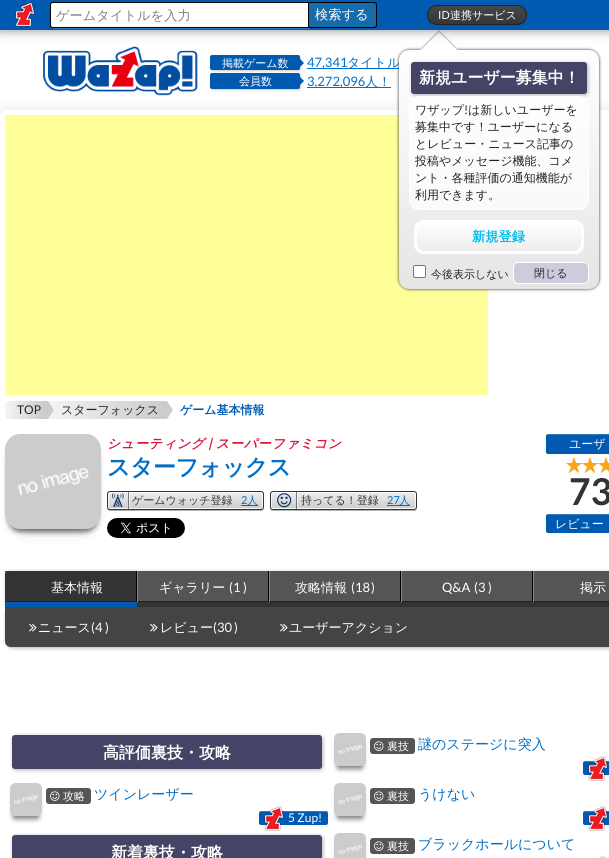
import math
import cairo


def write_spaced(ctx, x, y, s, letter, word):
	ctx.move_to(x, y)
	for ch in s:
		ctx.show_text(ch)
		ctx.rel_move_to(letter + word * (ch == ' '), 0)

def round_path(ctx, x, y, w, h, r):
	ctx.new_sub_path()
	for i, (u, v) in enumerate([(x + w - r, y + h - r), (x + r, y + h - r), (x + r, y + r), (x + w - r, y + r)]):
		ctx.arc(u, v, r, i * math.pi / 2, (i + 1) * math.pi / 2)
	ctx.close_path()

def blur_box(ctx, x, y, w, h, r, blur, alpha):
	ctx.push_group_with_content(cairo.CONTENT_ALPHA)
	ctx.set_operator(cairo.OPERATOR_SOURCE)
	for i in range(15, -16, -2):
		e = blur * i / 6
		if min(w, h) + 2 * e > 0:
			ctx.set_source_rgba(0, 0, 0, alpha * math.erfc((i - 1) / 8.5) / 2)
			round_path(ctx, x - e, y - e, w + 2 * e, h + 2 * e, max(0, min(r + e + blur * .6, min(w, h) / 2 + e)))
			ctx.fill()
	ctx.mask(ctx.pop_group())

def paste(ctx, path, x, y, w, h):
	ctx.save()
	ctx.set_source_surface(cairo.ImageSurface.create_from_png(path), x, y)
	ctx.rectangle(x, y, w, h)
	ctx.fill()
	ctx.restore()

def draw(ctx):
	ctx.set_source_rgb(1, 1, 1)
	ctx.paint()
	paste(ctx, 'media/2.png', 43, 46, 155, 50)
	ctx.set_source_rgb(0, 0.435, 0.78)
	ctx.rectangle(307, 68, 92, 1)
	ctx.fill()
	ctx.set_source_rgb(0, 0, 0)
	blur_box(ctx, 211, 56, 90, 15, 2, 1, 0.2)
	blur_box(ctx, 211, 74, 90, 16, 2, 1, 0.2)
	ctx.set_source_rgb(0, 0.353, 0.69)
	round_path(ctx, 210, 73, 90, 16, 2)
	ctx.fill()
	ctx.set_source_rgb(0, 0.435, 0.78)
	ctx.rectangle(307, 87, 84, 1)
	ctx.fill()
	ctx.set_source_rgb(0, 0, 0)
	blur_box(ctx, 0, 110, 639, 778, 6, 8, 0.1)
	ctx.set_source_rgb(1, 1, 1)
	round_path(ctx, 0, 110, 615, 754, 6)
	ctx.fill()
	ctx.set_source_rgb(1, 1, 0.6)
	ctx.rectangle(5, 115, 483, 280)
	ctx.fill()
	ctx.set_source_rgb(0.129, 0.149, 0.149)
	blur_box(ctx, 399, 50, 200, 239, 10, 1.5, 1)
	ctx.set_source_rgb(0.8, 0.8, 0.8)
	ctx.new_path()
	ctx.move_to(459, 50)
	ctx.line_to(419, 50)
	ctx.line_to(439, 30)
	ctx.close_path()
	ctx.fill()
	ctx.set_source_rgb(1, 1, 1)
	ctx.new_path()
	ctx.move_to(457, 50)
	ctx.line_to(421, 50)
	ctx.line_to(439, 32)
	ctx.close_path()
	ctx.fill()
	ctx.set_source_rgb(0, 0, 0)
	blur_box(ctx, 0, 1, 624, 30, 0, 5, 0.4)
	ctx.set_source_rgb(0, 0.357, 0.69)
	ctx.rectangle(0, 0, 609, 30)
	ctx.fill()
	paste(ctx, 'media/1.png', 15, 2, 20, 25)
	ctx.set_source_rgb(0.2, 0.486, 0.753)
	ctx.new_path()
	ctx.move_to(51, 28)
	ctx.curve_to(52, 28, 53, 29, 54, 29)
	ctx.line_to(310, 29)
	ctx.line_to(310, 3)
	ctx.line_to(309, 3)
	ctx.line_to(309, 28)
	ctx.line_to(53, 28)
	ctx.close_path()
	ctx.fill()
	ctx.set_source_rgb(1, 1, 1)
	ctx.new_path()
	ctx.move_to(53, 2.5)
	ctx.line_to(308.5, 2.5)
	ctx.line_to(308.5, 27.5)
	ctx.line_to(53, 27.5)
	ctx.curve_to(51.5, 27.5, 50.5, 26.5, 50.5, 25)
	ctx.line_to(50.5, 5)
	ctx.curve_to(50.5, 3.5, 51.5, 2.5, 53, 2.5)
	ctx.close_path()
	ctx.fill_preserve()
	ctx.set_source_rgb(0, 0, 0)
	ctx.set_line_width(1)
	ctx.stroke()
	ctx.select_font_face('WenQuanYi Zen Hei Medium')
	ctx.set_font_size(13.25)
	ctx.set_source_rgb(0.502, 0.502, 0.502)
	ctx.move_to(56, 20)
	ctx.show_text('ゲームタイトルを入力')
	ctx.set_source_rgb(0.086, 0.42, 0.663)
	ctx.new_path()
	ctx.move_to(309, 2)
	ctx.line_to(374, 2)
	ctx.curve_to(375.5, 2, 377, 3.5, 377, 5)
	ctx.line_to(377, 25)
	ctx.curve_to(377, 26.5, 375.5, 28, 374, 28)
	ctx.line_to(309, 28)
	ctx.close_path()
	ctx.fill()
	ctx.set_source_rgb(0, 0, 0)
	ctx.set_fill_rule(cairo.FILL_RULE_EVEN_ODD)
	ctx.new_path()
	ctx.move_to(309, 2)
	ctx.line_to(374, 2)
	ctx.curve_to(376, 2, 377, 3, 377, 5)
	ctx.line_to(377, 25)
	ctx.curve_to(377, 27, 376, 28, 374, 28)
	ctx.line_to(309, 28)
	ctx.close_path()
	ctx.move_to(309, 3)
	ctx.line_to(374, 3)
	ctx.curve_to(375, 3, 376, 4, 376, 5)
	ctx.line_to(376, 25)
	ctx.curve_to(376, 26, 375, 27, 374, 27)
	ctx.line_to(309, 27)
	ctx.close_path()
	ctx.fill()
	ctx.set_source_rgb(1, 1, 1)
	ctx.move_to(315, 19)
	ctx.show_text('検索する')
	ctx.save()
	ctx.set_fill_rule(cairo.FILL_RULE_WINDING)
	round_path(ctx, 427, 5, 100, 20, 10)
	ctx.clip()
	gradient = cairo.LinearGradient(477, 6, 477, 24)
	gradient.add_color_stop_rgba(0, 0.271, 0.282, 0.302, 1)
	gradient.add_color_stop_rgba(1, 0.212, 0.212, 0.212, 1)
	ctx.set_source(gradient)
	ctx.rectangle(427, 6, 100, 18)
	ctx.fill()
	ctx.restore()
	round_path(ctx, 427.5, 5.5, 99, 19, 9.5)
	ctx.set_source_rgb(0.133, 0.133, 0.133)
	ctx.stroke()
	ctx.select_font_face('Lato')
	ctx.set_font_size(11)
	ctx.set_source_rgb(1, 1, 1)
	ctx.move_to(438, 19)
	ctx.show_text('ID')
	ctx.select_font_face('WenQuanYi Zen Hei Medium')
	ctx.move_to(450, 19)
	ctx.show_text('連携サービス')
	ctx.set_source_rgb(0, 0.353, 0.69)
	round_path(ctx, 210, 55, 90, 15, 2)
	ctx.fill()
	ctx.set_source_rgb(1, 1, 1)
	ctx.move_to(222, 67)
	ctx.show_text('掲載ゲーム数')
	ctx.set_source_rgb(0, 0.353, 0.69)
	ctx.set_fill_rule(cairo.FILL_RULE_WINDING)
	ctx.new_path()
	ctx.move_to(300, 67)
	ctx.line_to(300, 59)
	ctx.line_to(304, 63)
	ctx.close_path()
	ctx.fill()
	ctx.select_font_face('Lato')
	ctx.set_font_size(13)
	ctx.set_source_rgb(0, 0.435, 0.78)
	ctx.move_to(307, 67)
	ctx.show_text('47,341')
	ctx.select_font_face('WenQuanYi Zen Hei Medium')
	ctx.move_to(347, 67)
	ctx.show_text('タイトル')
	ctx.set_font_size(11)
	ctx.set_source_rgb(1, 1, 1)
	ctx.move_to(239, 85)
	ctx.show_text('会員数')
	ctx.set_source_rgb(0, 0.353, 0.69)
	ctx.new_path()
	ctx.move_to(300, 85)
	ctx.line_to(300, 77)
	ctx.line_to(304, 81)
	ctx.close_path()
	ctx.fill()
	ctx.select_font_face('Lato')
	ctx.set_font_size(13)
	ctx.set_source_rgb(0, 0.435, 0.78)
	ctx.move_to(307, 86)
	ctx.show_text('3,272,096')
	ctx.select_font_face('WenQuanYi Zen Hei Medium')
	ctx.move_to(365, 86)
	ctx.show_text('人！')
	gradient = cairo.LinearGradient(499, 50, 499, 289)
	gradient.add_color_stop_rgba(0, 1, 1, 1, 1)
	gradient.add_color_stop_rgba(1, 0.898, 0.898, 0.898, 1)
	ctx.set_source(gradient)
	round_path(ctx, 399, 50, 200, 239, 10)
	ctx.fill()
	ctx.set_source_rgb(0, 0, 0)
	blur_box(ctx, 412, 63, 176, 32, 3, 2, 0.3)
	ctx.set_source_rgb(0.267, 0.267, 0.4)
	round_path(ctx, 411, 62, 176, 32, 3)
	ctx.fill()
	ctx.select_font_face('WenQuanYi Zen Hei', cairo.FONT_SLANT_NORMAL, cairo.FONT_WEIGHT_BOLD)
	ctx.set_font_size(16)
	ctx.set_source_rgb(1, 1, 1)
	ctx.move_to(419, 83)
	ctx.show_text('新規ユーザー募集中！')
	ctx.set_source_rgba(1, 1, 1, 0.7)
	round_path(ctx, 409.5, 96.5, 179, 113, 9.5)
	ctx.fill_preserve()
	ctx.set_source_rgb(1, 1, 1)
	ctx.stroke()
	ctx.select_font_face('WenQuanYi Zen Hei Medium')
	ctx.set_font_size(12)
	ctx.set_source_rgb(0.129, 0.149, 0.149)
	ctx.move_to(415, 114)
	ctx.show_text('ワザップ')
	ctx.select_font_face('Lato')
	ctx.move_to(464, 114)
	ctx.show_text('!')
	ctx.select_font_face('WenQuanYi Zen Hei Medium')
	for x, y, s in [
		(468, 114, 'は新しいユーザーを'),
		(415, 131, '募集中です！ユーザーになる'),
		(415, 148, 'とレビュー・ニュース記事の'),
		(415, 165, '投稿やメッセージ機能、コメ'),
		(415, 182, 'ント・各種評価の通知機能が'),
		(415, 199, '利用できます。'),
	]:
		ctx.move_to(x, y)
		ctx.show_text(s)
	ctx.set_source_rgba(1, 1, 1, 0.2)
	ctx.new_path()
	ctx.move_to(417, 252)
	ctx.curve_to(419, 254, 422, 255, 425, 255)
	ctx.line_to(575, 255)
	ctx.curve_to(581, 255, 585, 251, 585, 245)
	ctx.line_to(585, 231)
	ctx.curve_to(585, 228, 584, 225, 582, 223)
	ctx.curve_to(583, 225, 584, 227, 584, 230)
	ctx.line_to(584, 244)
	ctx.curve_to(584, 250, 580, 254, 574, 254)
	ctx.line_to(424, 254)
	ctx.curve_to(421, 254, 419, 253, 417, 252)
	ctx.close_path()
	ctx.fill()
	ctx.save()
	round_path(ctx, 414, 220, 170, 34, 10)
	ctx.clip()
	gradient = cairo.LinearGradient(499, 223, 499, 251)
	gradient.add_color_stop_rgba(0, 1, 1, 1, 1)
	gradient.add_color_stop_rgba(0.47, 0.965, 0.965, 0.965, 1)
	gradient.add_color_stop_rgba(1, 0.929, 0.929, 0.929, 1)
	ctx.set_source(gradient)
	ctx.rectangle(414, 223, 170, 28)
	ctx.fill()
	ctx.restore()
	round_path(ctx, 415.5, 221.5, 167, 31, 8.5)
	ctx.set_source_rgb(1, 1, 1)
	ctx.set_line_width(3)
	ctx.stroke()
	ctx.select_font_face('WenQuanYi Zen Hei', cairo.FONT_SLANT_NORMAL, cairo.FONT_WEIGHT_BOLD)
	ctx.set_font_size(13.25)
	ctx.set_source_rgb(0, 0.737, 0.922)
	ctx.move_to(472, 241)
	ctx.show_text('新規登録')
	ctx.set_source_rgb(1, 1, 1)
	round_path(ctx, 413.5, 265.5, 12, 12, 1.5)
	ctx.fill_preserve()
	ctx.set_source_rgb(0.463, 0.463, 0.463)
	ctx.set_line_width(1)
	ctx.stroke()
	ctx.select_font_face('WenQuanYi Zen Hei Medium')
	ctx.set_font_size(11)
	ctx.set_source_rgb(0.129, 0.149, 0.149)
	ctx.move_to(431, 278)
	ctx.show_text('今後表示しない')
	ctx.set_source_rgb(0.8, 0.8, 0.867)
	round_path(ctx, 513.5, 262.5, 75, 21, 4.5)
	ctx.fill_preserve()
	ctx.set_source_rgb(1, 1, 1)
	ctx.stroke()
	ctx.set_source_rgb(0.129, 0.149, 0.149)
	ctx.move_to(534, 277)
	ctx.show_text('閉じる')
	gradient = cairo.LinearGradient(5, 410, 43, 410)
	gradient.add_color_stop_rgba(0, 0.961, 0.961, 0.961, 1)
	gradient.add_color_stop_rgba(1, 0.8, 0.8, 0.8, 1)
	ctx.set_source(gradient)
	ctx.new_path()
	ctx.move_to(9, 401)
	ctx.line_to(43, 401)
	ctx.line_to(43, 419)
	ctx.line_to(9, 419)
	ctx.curve_to(7, 419, 5, 417, 5, 415)
	ctx.line_to(5, 405)
	ctx.curve_to(5, 403, 7, 401, 9, 401)
	ctx.close_path()
	ctx.fill()
	ctx.select_font_face('Lato')
	ctx.set_font_size(12)
	ctx.set_source_rgb(0.129, 0.149, 0.149)
	ctx.move_to(17, 414)
	ctx.show_text('TOP')
	gradient = cairo.LinearGradient(43, 410, 162, 410)
	gradient.add_color_stop_rgba(0, 0.961, 0.961, 0.961, 1)
	gradient.add_color_stop_rgba(1, 0.8, 0.8, 0.8, 1)
	ctx.set_source(gradient)
	ctx.rectangle(48, 401, 113, 18)
	ctx.fill()
	ctx.save()
	ctx.rectangle(5, 401, 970, 18)
	ctx.clip()
	ctx.set_source_rgb(0.8, 0.8, 0.8)
	ctx.new_path()
	ctx.move_to(42, 428)
	ctx.line_to(42, 392)
	ctx.line_to(54, 410)
	ctx.close_path()
	ctx.fill()
	ctx.restore()
	ctx.select_font_face('WenQuanYi Zen Hei Medium')
	ctx.set_source_rgb(0.129, 0.149, 0.149)
	ctx.move_to(61, 414)
	ctx.show_text('スターフォックス')
	ctx.save()
	ctx.rectangle(5, 401, 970, 18)
	ctx.clip()
	ctx.set_source_rgb(0.8, 0.8, 0.8)
	ctx.new_path()
	ctx.move_to(161, 428)
	ctx.line_to(161, 392)
	ctx.line_to(173, 410)
	ctx.close_path()
	ctx.fill()
	ctx.restore()
	ctx.select_font_face('WenQuanYi Zen Hei', cairo.FONT_SLANT_NORMAL, cairo.FONT_WEIGHT_BOLD)
	ctx.set_source_rgb(0, 0.353, 0.69)
	ctx.move_to(180, 414)
	ctx.show_text('ゲーム基本情報')
	ctx.set_source_rgb(0.702, 0.702, 0.702)
	ctx.new_path()
	ctx.move_to(107, 507)
	ctx.line_to(107, 508)
	ctx.curve_to(107, 510, 108, 511, 110, 511)
	ctx.line_to(261, 511)
	ctx.curve_to(263, 511, 264, 510, 264, 508)
	ctx.line_to(264, 507)
	ctx.curve_to(264, 509, 263, 510, 261, 510)
	ctx.line_to(110, 510)
	ctx.curve_to(108, 510, 107, 509, 107, 507)
	ctx.close_path()
	ctx.fill()
	ctx.save()
	round_path(ctx, 107, 491, 157, 19, 3)
	ctx.clip()
	gradient = cairo.LinearGradient(186, 492, 186, 509)
	gradient.add_color_stop_rgba(0, 0.933, 0.933, 0.933, 1)
	gradient.add_color_stop_rgba(1, 0.8, 0.8, 0.8, 1)
	ctx.set_source(gradient)
	ctx.rectangle(107, 492, 157, 17)
	ctx.fill()
	ctx.restore()
	round_path(ctx, 108.5, 492.5, 154, 16, 1.5)
	ctx.set_source_rgba(1, 1, 1, 0.8)
	ctx.stroke()
	round_path(ctx, 107.5, 491.5, 156, 18, 2.5)
	ctx.set_source_rgb(0.2, 0.2, 0.2)
	ctx.stroke()
	paste(ctx, 'media/6.png', 107, 518, 78, 20)
	ctx.set_source_rgb(0, 0, 0)
	blur_box(ctx, 25, 464, 56, 55, 0, 10, 1)
	blur_box(ctx, 8, 443, 90, 89, 12, 2.5, 0.5)
	paste(ctx, 'media/3.png', 5, 434, 96, 95)
	ctx.select_font_face('WenQuanYi Zen Hei', cairo.FONT_SLANT_ITALIC, cairo.FONT_WEIGHT_BOLD)
	ctx.set_font_size(13)
	ctx.set_source_rgb(0.863, 0.078, 0.235)
	write_spaced(ctx, 107, 448, 'シューティング', 0.75, 0)
	ctx.select_font_face('Lato', cairo.FONT_SLANT_ITALIC, cairo.FONT_WEIGHT_BOLD)
	write_spaced(ctx, 208, 448, '|', 0.75, 0)
	ctx.select_font_face('WenQuanYi Zen Hei', cairo.FONT_SLANT_ITALIC, cairo.FONT_WEIGHT_BOLD)
	write_spaced(ctx, 216, 448, 'スーパーファミコン', 0.75, 0)
	ctx.select_font_face('WenQuanYi Zen Hei', cairo.FONT_SLANT_NORMAL, cairo.FONT_WEIGHT_BOLD)
	ctx.set_font_size(23)
	ctx.set_source_rgb(0, 0.435, 0.78)
	write_spaced(ctx, 107, 475, 'スターフォックス', -0.5, 0)
	ctx.set_source_rgba(1, 1, 1, 0.5)
	ctx.rectangle(128, 492, 2, 17)
	ctx.fill()
	ctx.set_source_rgba(0, 0, 0, 0.5)
	ctx.rectangle(128, 492, 1, 17)
	ctx.fill()
	paste(ctx, 'media/4.png', 112, 493, 12, 15)
	ctx.select_font_face('WenQuanYi Zen Hei Medium')
	ctx.set_font_size(11)
	ctx.set_source_rgb(0.2, 0.2, 0.2)
	ctx.move_to(132, 504)
	ctx.show_text('ゲームウォッチ登録')
	ctx.select_font_face('Lato')
	ctx.set_source_rgb(0, 0.435, 0.78)
	ctx.move_to(241, 504)
	ctx.show_text('2')
	ctx.rectangle(241, 505, 17, 1)
	ctx.fill()
	ctx.select_font_face('WenQuanYi Zen Hei Medium')
	ctx.move_to(247, 504)
	ctx.show_text('人')
	ctx.set_source_rgb(0.702, 0.702, 0.702)
	ctx.new_path()
	ctx.move_to(270, 507)
	ctx.line_to(270, 508)
	ctx.curve_to(270, 510, 271, 511, 273, 511)
	ctx.line_to(414, 511)
	ctx.curve_to(416, 511, 417, 510, 417, 508)
	ctx.line_to(417, 507)
	ctx.curve_to(417, 509, 416, 510, 414, 510)
	ctx.line_to(273, 510)
	ctx.curve_to(271, 510, 270, 509, 270, 507)
	ctx.close_path()
	ctx.fill()
	ctx.save()
	round_path(ctx, 270, 491, 147, 19, 3)
	ctx.clip()
	gradient = cairo.LinearGradient(344, 492, 344, 509)
	gradient.add_color_stop_rgba(0, 0.933, 0.933, 0.933, 1)
	gradient.add_color_stop_rgba(1, 0.8, 0.8, 0.8, 1)
	ctx.set_source(gradient)
	ctx.rectangle(270, 492, 147, 17)
	ctx.fill()
	ctx.restore()
	round_path(ctx, 271.5, 492.5, 144, 16, 1.5)
	ctx.set_source_rgba(1, 1, 1, 0.8)
	ctx.stroke()
	round_path(ctx, 270.5, 491.5, 146, 18, 2.5)
	ctx.set_source_rgb(0.2, 0.2, 0.2)
	ctx.stroke()
	ctx.set_source_rgba(1, 1, 1, 0.5)
	ctx.rectangle(296, 492, 2, 17)
	ctx.fill()
	ctx.set_source_rgba(0, 0, 0, 0.5)
	ctx.rectangle(296, 492, 1, 17)
	ctx.fill()
	paste(ctx, 'media/5.png', 277, 493, 15, 15)
	ctx.set_source_rgb(0.2, 0.2, 0.2)
	ctx.move_to(301, 504)
	ctx.show_text('持ってる！登録')
	ctx.select_font_face('Lato')
	ctx.set_source_rgb(0, 0.435, 0.78)
	ctx.move_to(387, 504)
	ctx.show_text('27')
	ctx.rectangle(387, 505, 23, 1)
	ctx.fill()
	ctx.select_font_face('WenQuanYi Zen Hei Medium')
	ctx.move_to(399, 504)
	ctx.show_text('人')
	ctx.set_source_rgb(0, 0, 0)
	blur_box(ctx, 546, 435, 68, 20, 2, 1, 0.05)
	ctx.set_source_rgb(0, 0.353, 0.69)
	round_path(ctx, 546, 434, 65, 20, 2)
	ctx.fill()
	ctx.set_source_rgba(1, 1, 1, 0.2)
	ctx.new_path()
	ctx.move_to(548, 435)
	ctx.line_to(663, 435)
	ctx.curve_to(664, 435, 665, 436, 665, 437)
	ctx.curve_to(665, 436, 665, 435, 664, 434)
	ctx.line_to(567, 434)
	ctx.curve_to(561, 434, 546, 430, 546, 437)
	ctx.curve_to(546, 436, 547, 435, 548, 435)
	ctx.close_path()
	ctx.fill()
	ctx.set_font_size(12)
	ctx.set_source_rgb(1, 1, 1)
	ctx.move_to(569, 448)
	ctx.show_text('ユーザ')
	paste(ctx, 'media/7.png', 566, 457, 16, 16)
	paste(ctx, 'media/7.png', 582, 457, 16, 16)
	paste(ctx, 'media/8.png', 598, 457, 11, 16)
	ctx.select_font_face('Lato', cairo.FONT_SLANT_NORMAL, cairo.FONT_WEIGHT_BOLD)
	ctx.set_font_size(37)
	ctx.set_source_rgb(0.2, 0.2, 0.2)
	ctx.move_to(569, 505)
	ctx.show_text('73')
	ctx.set_source_rgb(0, 0, 0)
	blur_box(ctx, 546, 515, 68, 19, 2, 1, 0.05)
	ctx.set_source_rgb(0, 0.353, 0.69)
	round_path(ctx, 546, 514, 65, 19, 2)
	ctx.fill()
	ctx.set_source_rgba(1, 1, 1, 0.2)
	ctx.new_path()
	ctx.move_to(548, 515)
	ctx.line_to(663, 515)
	ctx.curve_to(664, 515, 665, 516, 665, 517)
	ctx.curve_to(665, 516, 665, 515, 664, 514)
	ctx.line_to(567, 514)
	ctx.curve_to(561, 514, 546, 510, 546, 517)
	ctx.curve_to(546, 516, 547, 515, 548, 515)
	ctx.close_path()
	ctx.fill()
	ctx.select_font_face('WenQuanYi Zen Hei Medium')
	ctx.set_font_size(12)
	ctx.set_source_rgb(1, 1, 1)
	ctx.move_to(555, 528)
	ctx.show_text('レビュー')
	ctx.set_source_rgb(0, 0, 0)
	blur_box(ctx, 6, 572, 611, 36, 2, 2, 0.3)
	ctx.set_source_rgb(0.333, 0.333, 0.333)
	ctx.rectangle(5, 571, 4, 4)
	ctx.fill()
	ctx.set_source_rgb(0, 0, 0)
	blur_box(ctx, 6, 608, 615, 40, 6, 2, 0.3)
	ctx.set_source_rgb(0, 0.353, 0.69)
	ctx.new_path()
	ctx.move_to(9, 571)
	ctx.line_to(137, 571)
	ctx.line_to(137, 607)
	ctx.line_to(5, 607)
	ctx.line_to(5, 575)
	ctx.curve_to(5, 573, 7, 571, 9, 571)
	ctx.close_path()
	ctx.fill()
	ctx.set_source_rgb(0.2, 0.2, 0.2)
	ctx.new_path()
	ctx.move_to(9, 571)
	ctx.line_to(137, 571)
	ctx.line_to(137, 602)
	ctx.line_to(5, 602)
	ctx.line_to(5, 575)
	ctx.curve_to(5, 573, 7, 571, 9, 571)
	ctx.close_path()
	ctx.fill()
	ctx.set_source_rgb(0, 0, 0)
	ctx.new_path()
	ctx.move_to(137, 571)
	ctx.line_to(136, 571)
	ctx.line_to(136, 601)
	ctx.line_to(137, 602)
	ctx.close_path()
	ctx.fill()
	ctx.set_source_rgb(0.133, 0.133, 0.133)
	ctx.new_path()
	ctx.move_to(137, 602)
	ctx.line_to(136, 601)
	ctx.line_to(5, 601)
	ctx.line_to(5, 602)
	ctx.close_path()
	ctx.fill()
	ctx.set_font_size(13)
	ctx.set_source_rgb(1, 1, 1)
	ctx.move_to(51, 592)
	ctx.show_text('基本情報')
	ctx.set_source_rgb(0.2, 0.2, 0.2)
	ctx.rectangle(137, 602, 472, 5)
	ctx.fill()
	ctx.set_source_rgb(0.333, 0.333, 0.333)
	ctx.rectangle(138, 571, 130, 30)
	ctx.fill()
	ctx.set_source_rgb(0, 0, 0)
	ctx.rectangle(268, 571, 1, 31)
	ctx.fill()
	ctx.set_source_rgb(0.133, 0.133, 0.133)
	ctx.rectangle(137, 601, 132, 1)
	ctx.fill()
	ctx.set_source_rgb(0.533, 0.533, 0.533)
	ctx.rectangle(137, 571, 1, 31)
	ctx.fill()
	ctx.set_source_rgb(1, 1, 1)
	ctx.move_to(159, 592)
	ctx.show_text('ギャラリー')
	ctx.select_font_face('Lato')
	ctx.move_to(229, 592)
	ctx.show_text('(1')
	ctx.move_to(243, 592)
	ctx.show_text(')')
	ctx.set_source_rgb(0.333, 0.333, 0.333)
	ctx.rectangle(270, 571, 130, 30)
	ctx.fill()
	ctx.set_source_rgb(0, 0, 0)
	ctx.rectangle(400, 571, 1, 31)
	ctx.fill()
	ctx.set_source_rgb(0.133, 0.133, 0.133)
	ctx.rectangle(269, 601, 132, 1)
	ctx.fill()
	ctx.set_source_rgb(0.533, 0.533, 0.533)
	ctx.rectangle(269, 571, 1, 31)
	ctx.fill()
	ctx.select_font_face('WenQuanYi Zen Hei Medium')
	ctx.set_source_rgb(1, 1, 1)
	ctx.move_to(295, 592)
	ctx.show_text('攻略情報')
	ctx.select_font_face('Lato')
	ctx.move_to(351, 592)
	ctx.show_text('(18')
	ctx.move_to(371, 592)
	ctx.show_text(')')
	ctx.set_source_rgb(0.333, 0.333, 0.333)
	ctx.rectangle(402, 571, 130, 30)
	ctx.fill()
	ctx.set_source_rgb(0, 0, 0)
	ctx.rectangle(532, 571, 1, 31)
	ctx.fill()
	ctx.set_source_rgb(0.133, 0.133, 0.133)
	ctx.rectangle(401, 601, 208, 1)
	ctx.fill()
	ctx.set_source_rgb(0.533, 0.533, 0.533)
	ctx.rectangle(401, 571, 1, 31)
	ctx.fill()
	ctx.set_source_rgb(1, 1, 1)
	for x, y, s in [
		(442, 592, 'Q&A'),
		(474, 592, '(3'),
		(488, 592, ')'),
	]:
		ctx.move_to(x, y)
		ctx.show_text(s)
	ctx.set_source_rgb(0.333, 0.333, 0.333)
	ctx.rectangle(534, 571, 75, 30)
	ctx.fill()
	ctx.set_source_rgb(0.533, 0.533, 0.533)
	ctx.rectangle(533, 571, 1, 31)
	ctx.fill()
	ctx.select_font_face('WenQuanYi Zen Hei Medium')
	ctx.set_source_rgb(1, 1, 1)
	ctx.move_to(580, 592)
	ctx.show_text('掲示')
	ctx.set_source_rgb(0.267, 0.267, 0.267)
	ctx.new_path()
	ctx.move_to(5, 607)
	ctx.line_to(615, 607)
	ctx.line_to(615, 641)
	ctx.curve_to(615, 644.5, 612.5, 647, 609, 647)
	ctx.line_to(11, 647)
	ctx.curve_to(7.5, 647, 5, 644.5, 5, 641)
	ctx.close_path()
	ctx.fill()
	paste(ctx, 'media/9.png', 29, 623, 8, 9)
	ctx.set_source_rgb(1, 1, 1)
	ctx.move_to(38, 632)
	ctx.show_text('ニュース')
	ctx.select_font_face('Lato')
	ctx.move_to(91, 632)
	ctx.show_text('(4')
	ctx.move_to(105, 632)
	ctx.show_text(')')
	paste(ctx, 'media/9.png', 150, 623, 8, 9)
	ctx.select_font_face('WenQuanYi Zen Hei Medium')
	ctx.move_to(160, 632)
	ctx.show_text('レビュー')
	ctx.select_font_face('Lato')
	ctx.move_to(213, 632)
	ctx.show_text('(30')
	ctx.move_to(234, 632)
	ctx.show_text(')')
	paste(ctx, 'media/9.png', 280, 623, 8, 9)
	ctx.select_font_face('WenQuanYi Zen Hei Medium')
	ctx.move_to(289, 632)
	ctx.show_text('ユーザーアクション')
	ctx.set_source_rgb(0, 0, 0)
	blur_box(ctx, 13, 736, 310, 34, 3, 2, 0.3)
	ctx.set_source_rgb(0.267, 0.267, 0.4)
	round_path(ctx, 12, 735, 310, 34, 3)
	ctx.fill()
	ctx.select_font_face('WenQuanYi Zen Hei', cairo.FONT_SLANT_NORMAL, cairo.FONT_WEIGHT_BOLD)
	ctx.set_font_size(16)
	ctx.set_source_rgb(1, 1, 1)
	ctx.move_to(103, 758)
	ctx.show_text('高評価裏技・攻略')
	ctx.set_source_rgb(0.333, 0.333, 0.333)
	round_path(ctx, 370, 738, 45, 16, 3)
	ctx.fill()
	ctx.set_source_rgb(0, 0, 0)
	blur_box(ctx, 337, 742, 26, 27, 2, 2.5, 0.5)
	paste(ctx, 'media/10.png', 334, 733, 32, 33)
	paste(ctx, 'media/11.png', 374, 741, 10, 10)
	ctx.select_font_face('WenQuanYi Zen Hei Medium')
	ctx.set_font_size(11)
	ctx.set_source_rgb(1, 1, 1)
	ctx.move_to(387, 750)
	ctx.show_text('裏技')
	ctx.set_font_size(14)
	ctx.set_source_rgb(0, 0.435, 0.78)
	ctx.move_to(418, 749)
	ctx.show_text('謎のステージに突入')
	ctx.set_source_rgb(0, 0, 0)
	blur_box(ctx, 583, 762, 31, 14, 2, 1, 0.05)
	ctx.set_source_rgb(0, 0.353, 0.69)
	round_path(ctx, 583, 761, 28, 14, 2)
	ctx.fill()
	ctx.set_source_rgba(1, 1, 1, 0.2)
	ctx.new_path()
	ctx.move_to(585, 762)
	ctx.line_to(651, 762)
	ctx.line_to(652, 764)
	ctx.curve_to(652, 758, 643, 761, 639, 761)
	ctx.line_to(596, 761)
	ctx.curve_to(592, 761, 583, 758, 583, 764)
	ctx.curve_to(583, 763, 584, 762, 585, 762)
	ctx.close_path()
	ctx.fill()
	paste(ctx, 'media/12.png', 588, 756, 20, 25)
	ctx.set_source_rgb(0.333, 0.333, 0.333)
	round_path(ctx, 46, 788, 45, 16, 3)
	ctx.fill()
	ctx.set_source_rgb(0, 0, 0)
	blur_box(ctx, 13, 792, 26, 27, 2, 2.5, 0.5)
	paste(ctx, 'media/13.png', 10, 783, 32, 33)
	paste(ctx, 'media/11.png', 50, 791, 10, 10)
	ctx.set_font_size(11)
	ctx.set_source_rgb(1, 1, 1)
	ctx.move_to(63, 800)
	ctx.show_text('攻略')
	ctx.set_font_size(14)
	ctx.set_source_rgb(0, 0.435, 0.78)
	ctx.move_to(94, 799)
	ctx.show_text('ツインレーザー')
	ctx.set_source_rgb(0, 0, 0)
	blur_box(ctx, 259, 812, 69, 14, 2, 1, 0.05)
	ctx.set_source_rgb(0, 0.353, 0.69)
	round_path(ctx, 259, 811, 69, 14, 2)
	ctx.fill()
	ctx.set_source_rgba(1, 1, 1, 0.2)
	ctx.new_path()
	ctx.move_to(261, 812)
	ctx.line_to(327, 812)
	ctx.line_to(328, 814)
	ctx.curve_to(328, 808, 319, 811, 315, 811)
	ctx.line_to(272, 811)
	ctx.curve_to(268, 811, 259, 808, 259, 814)
	ctx.curve_to(259, 813, 260, 812, 261, 812)
	ctx.close_path()
	ctx.fill()
	ctx.set_source_rgb(0, 0, 0)
	blur_box(ctx, 13, 836, 310, 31, 3, 2, 0.3)
	paste(ctx, 'media/12.png', 264, 806, 20, 25)
	ctx.select_font_face('Lato')
	ctx.set_font_size(12)
	ctx.set_source_rgb(1, 1, 1)
	ctx.move_to(288, 822)
	ctx.show_text('5 Zup!')
	ctx.set_source_rgb(0.333, 0.333, 0.333)
	round_path(ctx, 370, 788, 45, 16, 3)
	ctx.fill()
	ctx.set_source_rgb(0, 0, 0)
	blur_box(ctx, 337, 792, 26, 27, 2, 2.5, 0.5)
	paste(ctx, 'media/13.png', 334, 783, 32, 33)
	paste(ctx, 'media/11.png', 374, 791, 10, 10)
	ctx.select_font_face('WenQuanYi Zen Hei Medium')
	ctx.set_font_size(11)
	ctx.set_source_rgb(1, 1, 1)
	ctx.move_to(387, 800)
	ctx.show_text('裏技')
	ctx.set_font_size(14)
	ctx.set_source_rgb(0, 0.435, 0.78)
	ctx.move_to(418, 799)
	ctx.show_text('うけない')
	ctx.set_source_rgb(0, 0, 0)
	blur_box(ctx, 583, 812, 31, 14, 2, 1, 0.05)
	ctx.set_source_rgb(0, 0.353, 0.69)
	round_path(ctx, 583, 811, 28, 14, 2)
	ctx.fill()
	ctx.set_source_rgba(1, 1, 1, 0.2)
	ctx.new_path()
	ctx.move_to(585, 812)
	ctx.line_to(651, 812)
	ctx.line_to(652, 814)
	ctx.curve_to(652, 808, 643, 811, 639, 811)
	ctx.line_to(596, 811)
	ctx.curve_to(592, 811, 583, 808, 583, 814)
	ctx.curve_to(583, 813, 584, 812, 585, 812)
	ctx.close_path()
	ctx.fill()
	paste(ctx, 'media/12.png', 588, 806, 20, 25)
	ctx.set_source_rgb(0.267, 0.267, 0.4)
	round_path(ctx, 12, 835, 310, 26, 3)
	ctx.fill()
	ctx.select_font_face('WenQuanYi Zen Hei', cairo.FONT_SLANT_NORMAL, cairo.FONT_WEIGHT_BOLD)
	ctx.set_font_size(16)
	ctx.set_source_rgb(1, 1, 1)
	ctx.move_to(111, 858)
	ctx.show_text('新着裏技・攻略')
	ctx.set_source_rgb(0.333, 0.333, 0.333)
	round_path(ctx, 370, 838, 45, 16, 3)
	ctx.fill()
	ctx.set_source_rgb(0, 0, 0)
	blur_box(ctx, 337, 842, 26, 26, 2, 2.5, 0.5)
	paste(ctx, 'media/14.png', 334, 833, 32, 25)
	paste(ctx, 'media/11.png', 374, 841, 10, 10)
	ctx.select_font_face('WenQuanYi Zen Hei Medium')
	ctx.set_font_size(11)
	ctx.set_source_rgb(1, 1, 1)
	ctx.move_to(387, 850)
	ctx.show_text('裏技')
	ctx.set_font_size(14)
	ctx.set_source_rgb(0, 0.435, 0.78)
	ctx.move_to(418, 849)
	ctx.show_text('ブラックホールについて')
	paste(ctx, 'media/15.png', 599, 856, 7, 2)


surface = cairo.ImageSurface(cairo.FORMAT_RGB24, 609, 858)
ctx = cairo.Context(surface)
options = cairo.FontOptions()
options.set_hint_metrics(cairo.HINT_METRICS_OFF)
options.set_hint_style(cairo.HINT_STYLE_NONE)
ctx.set_font_options(options)
ctx.set_miter_limit(4)
draw(ctx)
surface.write_to_png('image.png')
